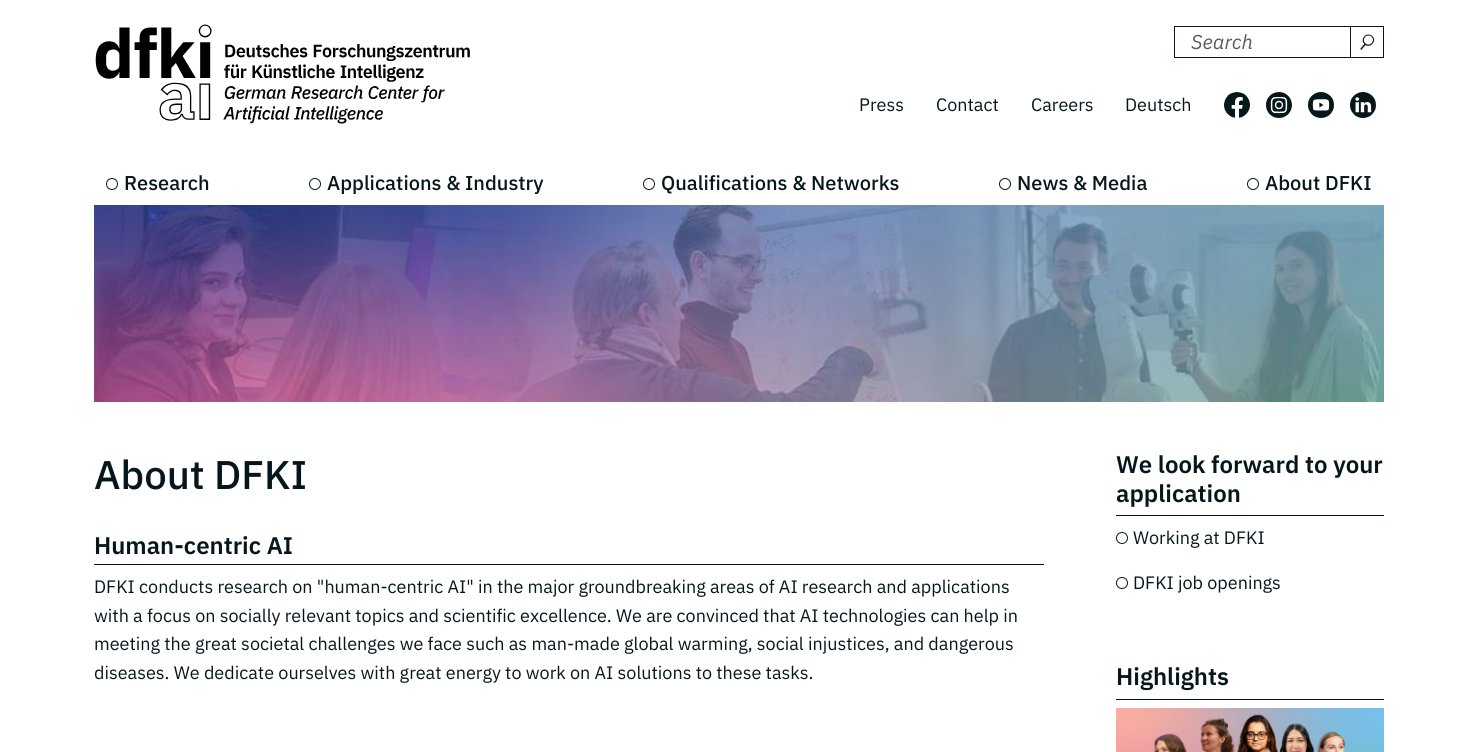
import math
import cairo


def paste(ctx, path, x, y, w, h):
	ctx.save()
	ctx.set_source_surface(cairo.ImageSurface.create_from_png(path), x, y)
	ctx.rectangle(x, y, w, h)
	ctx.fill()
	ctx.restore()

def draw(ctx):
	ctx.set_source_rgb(1, 1, 1)
	ctx.paint()
	paste(ctx, 'media/1.png', 95, 24, 375, 100)
	ctx.rectangle(1174.5, 26.5, 176, 31)
	ctx.set_source_rgb(0.024, 0.09, 0.11)
	ctx.set_line_width(1)
	ctx.stroke()
	ctx.select_font_face('IBM Plex Sans', cairo.FONT_SLANT_ITALIC)
	ctx.set_font_size(20)
	ctx.set_source_rgb(0.349, 0.361, 0.373)
	ctx.move_to(1191, 49)
	ctx.show_text('Search')
	ctx.rectangle(1350.5, 26.5, 33, 31)
	ctx.set_source_rgb(0.024, 0.09, 0.11)
	ctx.stroke()
	paste(ctx, 'media/2.png', 1360, 34, 15, 16)
	ctx.select_font_face('IBM Plex Sans')
	ctx.set_font_size(18)
	for x, y, s in [
		(859, 111, 'Press'),
		(936, 111, 'Contact'),
		(1031, 111, 'Careers'),
		(1125, 111, 'Deutsch'),
	]:
		ctx.move_to(x, y)
		ctx.show_text(s)
	paste(ctx, 'media/3.png', 1224, 92, 26, 26)
	paste(ctx, 'media/4.png', 1266, 92, 26, 26)
	paste(ctx, 'media/5.png', 1308, 92, 26, 26)
	paste(ctx, 'media/6.png', 1350, 92, 26, 26)
	ctx.arc(112, 184, 5.5, 0, 2 * math.pi)
	ctx.stroke()
	ctx.select_font_face('IBM Plex Sans Medium')
	ctx.set_font_size(20)
	ctx.move_to(124, 190)
	ctx.show_text('Research')
	ctx.new_path()
	ctx.arc(315, 184, 5.5, 0, 2 * math.pi)
	ctx.stroke()
	ctx.move_to(327, 190)
	ctx.show_text('Applications & Industry')
	ctx.new_path()
	ctx.arc(649, 184, 5.5, 0, 2 * math.pi)
	ctx.stroke()
	ctx.move_to(661, 190)
	ctx.show_text('Qualifications & Networks')
	ctx.new_path()
	ctx.arc(1005, 184, 5.5, 0, 2 * math.pi)
	ctx.stroke()
	ctx.move_to(1017, 190)
	ctx.show_text('News & Media')
	ctx.new_path()
	ctx.arc(1253, 184, 5.5, 0, 2 * math.pi)
	ctx.stroke()
	ctx.move_to(1265, 190)
	ctx.show_text('About DFKI')
	paste(ctx, 'media/7.png', 94, 205, 1290, 197)
	ctx.set_font_size(40)
	ctx.move_to(94, 489)
	ctx.show_text('About DFKI')
	ctx.rectangle(94, 564, 950, 1)
	ctx.fill()
	ctx.select_font_face('IBM Plex Sans SemiBold')
	ctx.set_font_size(24)
	ctx.move_to(94, 554)
	ctx.show_text('Human-centric AI')
	ctx.select_font_face('IBM Plex Sans')
	ctx.set_font_size(18)
	for x, y, s in [
		(94, 593, 'DFKI conducts research on "human-centric AI" in the major groundbreaking areas of AI research and applications'),
		(94, 622, 'with a focus on socially relevant topics and scientific excellence. We are convinced that AI technologies can help in'),
		(94, 650, 'meeting the great societal challenges we face such as man-made global warming, social injustices, and dangerous'),
		(94, 679, 'diseases. We dedicate ourselves with great energy to work on AI solutions to these tasks.'),
	]:
		ctx.move_to(x, y)
		ctx.show_text(s)
	ctx.rectangle(1116, 515, 268, 1)
	ctx.fill()
	ctx.select_font_face('IBM Plex Sans SemiBold')
	ctx.set_font_size(24)
	ctx.move_to(1116, 473)
	ctx.show_text('We look forward to your')
	ctx.move_to(1116, 502)
	ctx.show_text('application')
	ctx.new_path()
	ctx.arc(1122, 538, 5.5, 0, 2 * math.pi)
	ctx.stroke()
	ctx.select_font_face('IBM Plex Sans')
	ctx.set_font_size(18)
	ctx.move_to(1133, 544)
	ctx.show_text('Working at DFKI')
	ctx.new_path()
	ctx.arc(1122, 583, 5.5, 0, 2 * math.pi)
	ctx.stroke()
	ctx.move_to(1133, 589)
	ctx.show_text('DFKI job openings')
	ctx.rectangle(1116, 699, 268, 1)
	ctx.fill()
	ctx.select_font_face('IBM Plex Sans SemiBold')
	ctx.set_font_size(24)
	ctx.move_to(1116, 685)
	ctx.show_text('Highlights')
	paste(ctx, 'media/8.png', 1116, 708, 268, 44)


surface = cairo.ImageSurface(cairo.FORMAT_RGB24, 1478, 752)
ctx = cairo.Context(surface)
options = cairo.FontOptions()
options.set_hint_metrics(cairo.HINT_METRICS_OFF)
options.set_hint_style(cairo.HINT_STYLE_NONE)
ctx.set_font_options(options)
ctx.set_miter_limit(4)
draw(ctx)
surface.write_to_png('image.png')
